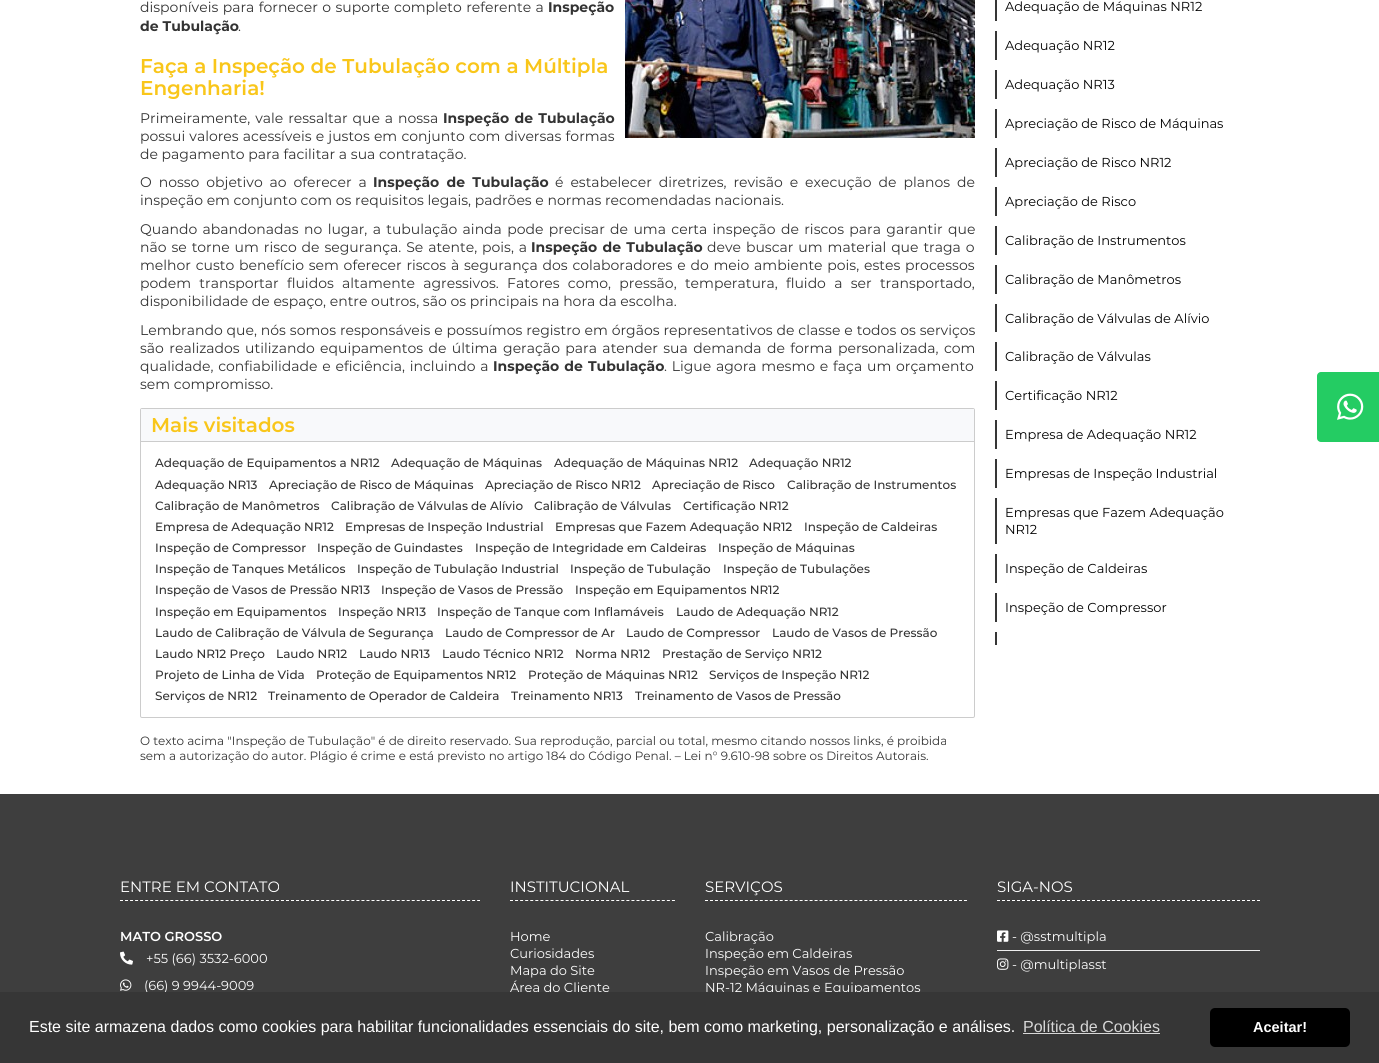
import math
import cairo


def write_spaced(ctx, x, y, s, letter, word):
	ctx.move_to(x, y)
	for ch in s:
		ctx.show_text(ch)
		ctx.rel_move_to(letter + word * (ch == ' '), 0)

def round_path(ctx, x, y, w, h, r):
	ctx.new_sub_path()
	for i, (u, v) in enumerate([(x + w - r, y + h - r), (x + r, y + h - r), (x + r, y + r), (x + w - r, y + r)]):
		ctx.arc(u, v, r, i * math.pi / 2, (i + 1) * math.pi / 2)
	ctx.close_path()

def paste(ctx, path, x, y, w, h):
	ctx.save()
	ctx.set_source_surface(cairo.ImageSurface.create_from_png(path), x, y)
	ctx.rectangle(x, y, w, h)
	ctx.fill()
	ctx.restore()

def draw(ctx):
	ctx.set_source_rgb(1, 1, 1)
	ctx.paint()
	ctx.select_font_face('Montserrat')
	ctx.set_font_size(14)
	ctx.set_source_rgb(0.2, 0.2, 0.2)
	write_spaced(ctx, 140, 12, 'disponíveis para fornecer o suporte completo referente a', 0, 0.75)
	ctx.select_font_face('Montserrat', cairo.FONT_SLANT_NORMAL, cairo.FONT_WEIGHT_BOLD)
	ctx.move_to(548, 12)
	ctx.show_text('Inspeção')
	ctx.move_to(140, 31)
	ctx.show_text('de Tubulação')
	ctx.select_font_face('Montserrat')
	ctx.move_to(238, 31)
	ctx.show_text('.')
	paste(ctx, 'media/1.png', 625, 0, 350, 138)
	ctx.select_font_face('Montserrat SemiBold')
	ctx.set_font_size(20)
	ctx.set_source_rgb(0.973, 0.776, 0.102)
	ctx.move_to(140, 73)
	ctx.show_text('Faça a Inspeção de Tubulação com a Múltipla')
	ctx.move_to(140, 95)
	ctx.show_text('Engenharia!')
	ctx.select_font_face('Montserrat')
	ctx.set_font_size(14)
	ctx.set_source_rgb(0.2, 0.2, 0.2)
	write_spaced(ctx, 140, 123, 'Primeiramente, vale ressaltar que a nossa', 0, 1.25)
	ctx.select_font_face('Montserrat', cairo.FONT_SLANT_NORMAL, cairo.FONT_WEIGHT_BOLD)
	write_spaced(ctx, 443, 123, 'Inspeção de Tubulação', 0, 1.25)
	ctx.select_font_face('Montserrat')
	write_spaced(ctx, 140, 141, 'possui valores acessíveis e justos em conjunto com diversas formas', 0, 0.5)
	ctx.move_to(140, 159)
	ctx.show_text('de pagamento para facilitar a sua contratação.')
	write_spaced(ctx, 140, 187, 'O nosso objetivo ao oferecer a', 0, 3.25)
	ctx.select_font_face('Montserrat', cairo.FONT_SLANT_NORMAL, cairo.FONT_WEIGHT_BOLD)
	write_spaced(ctx, 373, 187, 'Inspeção de Tubulação', 0, 3.25)
	ctx.select_font_face('Montserrat')
	write_spaced(ctx, 555, 187, 'é estabelecer diretrizes, revisão e execução de planos de', 0, 3.25)
	ctx.move_to(140, 205)
	ctx.show_text('inspeção em conjunto com os requisitos legais, padrões e normas recomendadas nacionais.')
	write_spaced(ctx, 140, 234, 'Quando abandonadas no lugar, a tubulação ainda pode precisar de uma certa inspeção de riscos para garantir que', 0, 1.7)
	write_spaced(ctx, 140, 252, 'não se torne um risco de segurança. Se atente, pois, a', 0, 1.25)
	ctx.select_font_face('Montserrat', cairo.FONT_SLANT_NORMAL, cairo.FONT_WEIGHT_BOLD)
	write_spaced(ctx, 531, 252, 'Inspeção de Tubulação', 0, 1.25)
	ctx.select_font_face('Montserrat')
	write_spaced(ctx, 707, 252, 'deve buscar um material que traga o', 0, 1.25)
	write_spaced(ctx, 140, 270, 'melhor custo benefício sem oferecer riscos à segurança dos colaboradores e do meio ambiente pois, estes processos', 0, 1.1)
	write_spaced(ctx, 140, 288, 'podem transportar fluidos altamente agressivos. Fatores como, pressão, temperatura, fluido a ser transportado,', 0, 4.6)
	ctx.move_to(140, 306)
	ctx.show_text('disponibilidade de espaço, entre outros, são os principais na hora da escolha.')
	write_spaced(ctx, 140, 335, 'Lembrando que, nós somos responsáveis e possuímos registro em órgãos representativos de classe e todos os serviços', 0, 0.25)
	write_spaced(ctx, 140, 353, 'são realizados utilizando equipamentos de última geração para atender sua demanda de forma personalizada, com', 0, 1.75)
	write_spaced(ctx, 140, 371, 'qualidade, confiabilidade e eficiência, incluindo a', 0, 1.1)
	ctx.select_font_face('Montserrat', cairo.FONT_SLANT_NORMAL, cairo.FONT_WEIGHT_BOLD)
	write_spaced(ctx, 493, 371, 'Inspeção de Tubulação', 0, 1.1)
	ctx.select_font_face('Montserrat')
	write_spaced(ctx, 664, 371, '. Ligue agora mesmo e faça um orçamento', 0, 1.1)
	ctx.move_to(140, 389)
	ctx.show_text('sem compromisso.')
	round_path(ctx, 140.5, 408.5, 834, 309, 1.5)
	ctx.set_source_rgb(0.8, 0.8, 0.8)
	ctx.set_line_width(1)
	ctx.stroke()
	ctx.set_source_rgb(0.969, 0.976, 0.984)
	ctx.rectangle(141, 409, 833, 32)
	ctx.fill()
	ctx.set_source_rgb(0.8, 0.8, 0.8)
	ctx.rectangle(141, 441, 833, 1)
	ctx.fill()
	ctx.select_font_face('Montserrat SemiBold')
	ctx.set_font_size(20)
	ctx.set_source_rgb(0.973, 0.776, 0.102)
	ctx.move_to(151, 432)
	ctx.show_text('Mais visitados')
	ctx.select_font_face('Montserrat Medium')
	ctx.set_font_size(12)
	ctx.set_source_rgb(0.2, 0.2, 0.2)
	for x, y, s in [
		(155, 467, 'Adequação de Equipamentos a NR12'),
		(391, 467, 'Adequação de Máquinas'),
		(554, 467, 'Adequação de Máquinas NR12'),
		(749, 467, 'Adequação NR12'),
		(155, 489, 'Adequação NR13'),
		(269, 489, 'Apreciação de Risco de Máquinas'),
		(485, 489, 'Apreciação de Risco NR12'),
		(652, 489, 'Apreciação de Risco'),
		(787, 489, 'Calibração de Instrumentos'),
		(155, 510, 'Calibração de Manômetros'),
		(331, 510, 'Calibração de Válvulas de Alívio'),
		(534, 510, 'Calibração de Válvulas'),
		(683, 510, 'Certificação NR12'),
		(155, 531, 'Empresa de Adequação NR12'),
		(345, 531, 'Empresas de Inspeção Industrial'),
		(555, 531, 'Empresas que Fazem Adequação NR12'),
		(804, 531, 'Inspeção de Caldeiras'),
		(155, 552, 'Inspeção de Compressor'),
		(317, 552, 'Inspeção de Guindastes'),
		(475, 552, 'Inspeção de Integridade em Caldeiras'),
		(718, 552, 'Inspeção de Máquinas'),
		(155, 573, 'Inspeção de Tanques Metálicos'),
		(357, 573, 'Inspeção de Tubulação Industrial'),
		(570, 573, 'Inspeção de Tubulação'),
		(723, 573, 'Inspeção de Tubulações'),
		(155, 594, 'Inspeção de Vasos de Pressão NR13'),
		(381, 594, 'Inspeção de Vasos de Pressão'),
		(575, 594, 'Inspeção em Equipamentos NR12'),
		(155, 616, 'Inspeção em Equipamentos'),
		(338, 616, 'Inspeção NR13'),
		(437, 616, 'Inspeção de Tanque com Inflamáveis'),
		(676, 616, 'Laudo de Adequação NR12'),
		(155, 637, 'Laudo de Calibração de Válvula de Segurança'),
		(445, 637, 'Laudo de Compressor de Ar'),
		(626, 637, 'Laudo de Compressor'),
		(772, 637, 'Laudo de Vasos de Pressão'),
		(155, 658, 'Laudo NR12 Preço'),
		(276, 658, 'Laudo NR12'),
		(359, 658, 'Laudo NR13'),
		(442, 658, 'Laudo Técnico NR12'),
		(575, 658, 'Norma NR12'),
		(662, 658, 'Prestação de Serviço NR12'),
		(155, 679, 'Projeto de Linha de Vida'),
		(316, 679, 'Proteção de Equipamentos NR12'),
		(528, 679, 'Proteção de Máquinas NR12'),
		(709, 679, 'Serviços de Inspeção NR12'),
		(155, 700, 'Serviços de NR12'),
		(268, 700, 'Treinamento de Operador de Caldeira'),
		(511, 700, 'Treinamento NR13'),
		(635, 700, 'Treinamento de Vasos de Pressão'),
	]:
		ctx.move_to(x, y)
		ctx.show_text(s)
	ctx.select_font_face('Montserrat')
	ctx.move_to(140, 745)
	ctx.show_text('O texto acima "Inspeção de Tubulação" é de direito reservado. Sua reprodução, parcial ou total, mesmo citando nossos links, é proibida')
	ctx.move_to(140, 760)
	ctx.show_text('sem a autorização do autor. Plágio é crime e está previsto no artigo 184 do Código Penal. – Lei n° 9.610-98 sobre os Direitos Autorais.')
	ctx.set_source_rgb(0.212, 0.212, 0.212)
	ctx.rectangle(995, 0, 2, 21)
	ctx.fill()
	ctx.set_font_size(13)
	ctx.set_source_rgb(0, 0, 0)
	ctx.move_to(1005, 11)
	ctx.show_text('Adequação de Máquinas NR12')
	ctx.set_source_rgb(0.212, 0.212, 0.212)
	ctx.rectangle(995, 31, 2, 29)
	ctx.fill()
	ctx.set_source_rgb(0, 0, 0)
	ctx.move_to(1005, 50)
	ctx.show_text('Adequação NR12')
	ctx.set_source_rgb(0.212, 0.212, 0.212)
	ctx.rectangle(995, 70, 2, 29)
	ctx.fill()
	ctx.set_source_rgb(0, 0, 0)
	ctx.move_to(1005, 89)
	ctx.show_text('Adequação NR13')
	ctx.set_source_rgb(0.212, 0.212, 0.212)
	ctx.rectangle(995, 109, 2, 29)
	ctx.fill()
	ctx.set_source_rgb(0, 0, 0)
	ctx.move_to(1005, 128)
	ctx.show_text('Apreciação de Risco de Máquinas')
	ctx.set_source_rgb(0.212, 0.212, 0.212)
	ctx.rectangle(995, 148, 2, 29)
	ctx.fill()
	ctx.set_source_rgb(0, 0, 0)
	ctx.move_to(1005, 167)
	ctx.show_text('Apreciação de Risco NR12')
	ctx.set_source_rgb(0.212, 0.212, 0.212)
	ctx.rectangle(995, 187, 2, 29)
	ctx.fill()
	ctx.set_source_rgb(0, 0, 0)
	ctx.move_to(1005, 206)
	ctx.show_text('Apreciação de Risco')
	ctx.set_source_rgb(0.212, 0.212, 0.212)
	ctx.rectangle(995, 226, 2, 29)
	ctx.fill()
	ctx.set_source_rgb(0, 0, 0)
	ctx.move_to(1005, 245)
	ctx.show_text('Calibração de Instrumentos')
	ctx.set_source_rgb(0.212, 0.212, 0.212)
	ctx.rectangle(995, 265, 2, 29)
	ctx.fill()
	ctx.set_source_rgb(0, 0, 0)
	ctx.move_to(1005, 284)
	ctx.show_text('Calibração de Manômetros')
	ctx.set_source_rgb(0.212, 0.212, 0.212)
	ctx.rectangle(995, 304, 2, 28)
	ctx.fill()
	ctx.set_source_rgb(0, 0, 0)
	ctx.move_to(1005, 323)
	ctx.show_text('Calibração de Válvulas de Alívio')
	ctx.set_source_rgb(0.212, 0.212, 0.212)
	ctx.rectangle(995, 342, 2, 29)
	ctx.fill()
	ctx.set_source_rgb(0, 0, 0)
	ctx.move_to(1005, 361)
	ctx.show_text('Calibração de Válvulas')
	ctx.set_source_rgb(0.212, 0.212, 0.212)
	ctx.rectangle(995, 381, 2, 29)
	ctx.fill()
	ctx.set_source_rgb(0, 0, 0)
	ctx.move_to(1005, 400)
	ctx.show_text('Certificação NR12')
	ctx.set_source_rgb(0.212, 0.212, 0.212)
	ctx.rectangle(995, 420, 2, 29)
	ctx.fill()
	ctx.set_source_rgb(0, 0, 0)
	ctx.move_to(1005, 439)
	ctx.show_text('Empresa de Adequação NR12')
	ctx.set_source_rgb(0.212, 0.212, 0.212)
	ctx.rectangle(995, 459, 2, 29)
	ctx.fill()
	ctx.set_source_rgb(0, 0, 0)
	ctx.move_to(1005, 478)
	ctx.show_text('Empresas de Inspeção Industrial')
	ctx.set_source_rgb(0.212, 0.212, 0.212)
	ctx.rectangle(995, 498, 2, 46)
	ctx.fill()
	ctx.set_source_rgb(0, 0, 0)
	ctx.move_to(1005, 517)
	ctx.show_text('Empresas que Fazem Adequação')
	ctx.move_to(1005, 534)
	ctx.show_text('NR12')
	ctx.set_source_rgb(0.212, 0.212, 0.212)
	ctx.rectangle(995, 554, 2, 29)
	ctx.fill()
	ctx.set_source_rgb(0, 0, 0)
	ctx.move_to(1005, 573)
	ctx.show_text('Inspeção de Caldeiras')
	ctx.set_source_rgb(0.212, 0.212, 0.212)
	ctx.rectangle(995, 593, 2, 29)
	ctx.fill()
	ctx.set_source_rgb(0, 0, 0)
	ctx.move_to(1005, 612)
	ctx.show_text('Inspeção de Compressor')
	ctx.set_source_rgb(0.212, 0.212, 0.212)
	ctx.rectangle(995, 632, 2, 13)
	ctx.fill()
	ctx.set_source_rgb(0.141, 0.8, 0.388)
	round_path(ctx, 1317, 372, 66, 70, 4)
	ctx.fill()
	paste(ctx, 'media/2.png', 1337, 393, 27, 27)
	ctx.set_source_rgb(0.243, 0.243, 0.243)
	ctx.rectangle(0, 794, 1379, 198)
	ctx.fill()
	ctx.new_path()
	ctx.move_to(120, 900.5)
	ctx.line_to(480, 900.5)
	ctx.set_source_rgb(1, 1, 1)
	ctx.set_dash([3, 2.03])
	ctx.stroke()
	ctx.set_font_size(15)
	ctx.move_to(120, 892)
	ctx.show_text('ENTRE EM CONTATO')
	ctx.select_font_face('Montserrat SemiBold')
	ctx.set_font_size(13)
	ctx.move_to(120, 941)
	ctx.show_text('MATO GROSSO')
	paste(ctx, 'media/3.png', 120, 951, 13, 14)
	ctx.select_font_face('Montserrat')
	ctx.move_to(146, 963)
	ctx.show_text('+55 (66) 3532-6000')
	paste(ctx, 'media/4.png', 120, 979, 12, 12)
	ctx.move_to(144, 990)
	ctx.show_text('(66) 9 9944-9009')
	ctx.new_path()
	ctx.move_to(510, 900.5)
	ctx.line_to(675, 900.5)
	ctx.set_dash([3, 2.06])
	ctx.stroke()
	ctx.set_font_size(15)
	ctx.move_to(510, 892)
	ctx.show_text('INSTITUCIONAL')
	ctx.set_font_size(13)
	for x, y, s in [
		(510, 941, 'Home'),
		(510, 958, 'Curiosidades'),
		(510, 975, 'Mapa do Site'),
		(510, 992, 'Área do Cliente'),
	]:
		ctx.move_to(x, y)
		ctx.show_text(s)
	ctx.new_path()
	ctx.move_to(705, 900.5)
	ctx.line_to(967, 900.5)
	ctx.set_dash([3, 1.98])
	ctx.stroke()
	ctx.set_font_size(15)
	ctx.move_to(705, 892)
	ctx.show_text('SERVIÇOS')
	ctx.set_font_size(13)
	for x, y, s in [
		(705, 941, 'Calibração'),
		(705, 958, 'Inspeção em Caldeiras'),
		(705, 975, 'Inspeção em Vasos de Pressão'),
		(705, 992, 'NR-12 Máquinas e Equipamentos'),
	]:
		ctx.move_to(x, y)
		ctx.show_text(s)
	ctx.new_path()
	ctx.move_to(997, 900.5)
	ctx.line_to(1260, 900.5)
	ctx.set_dash([3, 2])
	ctx.stroke()
	ctx.set_font_size(15)
	ctx.move_to(997, 892)
	ctx.show_text('SIGA-NOS')
	paste(ctx, 'media/5.png', 997, 930, 12, 12)
	ctx.set_font_size(13)
	ctx.move_to(1012, 941)
	ctx.show_text('- @sstmultipla')
	ctx.set_source_rgb(0.933, 0.933, 0.933)
	ctx.rectangle(997, 950, 263, 1)
	ctx.fill()
	paste(ctx, 'media/6.png', 997, 958, 12, 12)
	ctx.set_source_rgb(1, 1, 1)
	ctx.move_to(1012, 969)
	ctx.show_text('- @multiplasst')
	ctx.set_source_rgb(0.212, 0.212, 0.212)
	ctx.rectangle(0, 992, 1379, 71)
	ctx.fill()
	ctx.select_font_face('Liberation Sans')
	ctx.set_font_size(16)
	ctx.set_source_rgb(1, 1, 1)
	ctx.move_to(29, 1032)
	ctx.show_text('Este site armazena dados como cookies para habilitar funcionalidades essenciais do site, bem como marketing, personalização e análises.')
	ctx.set_source_rgb(0.843, 0.843, 0.843)
	ctx.move_to(1023, 1032)
	ctx.show_text('Política de Cookies')
	ctx.rectangle(1023, 1033, 137, 1)
	ctx.fill()
	ctx.set_source_rgb(0, 0, 0)
	round_path(ctx, 1210, 1008, 140, 39, 5)
	ctx.fill()
	ctx.select_font_face('Liberation Sans', cairo.FONT_SLANT_NORMAL, cairo.FONT_WEIGHT_BOLD)
	ctx.set_font_size(14.5)
	ctx.set_source_rgb(1, 1, 1)
	ctx.move_to(1253, 1032)
	ctx.show_text('Aceitar!')


surface = cairo.ImageSurface(cairo.FORMAT_RGB24, 1379, 1063)
ctx = cairo.Context(surface)
options = cairo.FontOptions()
options.set_hint_metrics(cairo.HINT_METRICS_OFF)
options.set_hint_style(cairo.HINT_STYLE_NONE)
ctx.set_font_options(options)
ctx.set_miter_limit(4)
draw(ctx)
surface.write_to_png('image.png')
